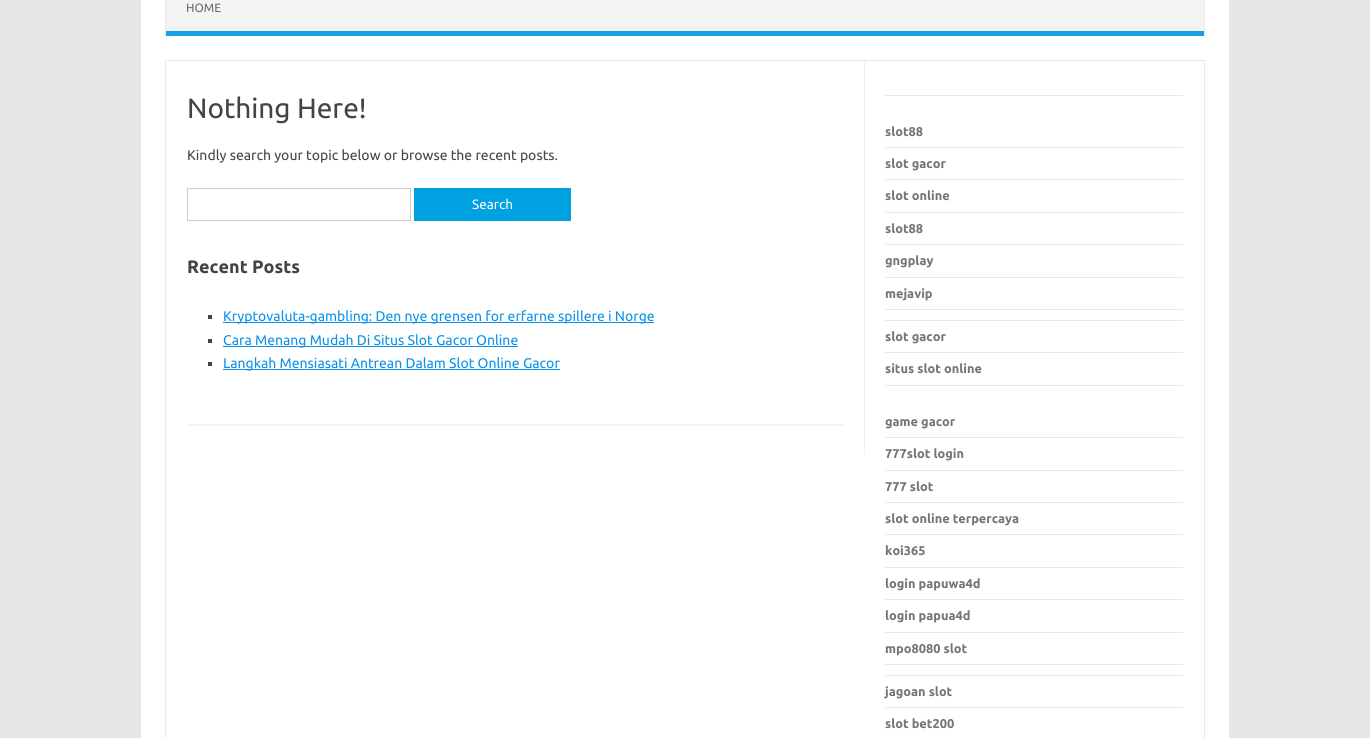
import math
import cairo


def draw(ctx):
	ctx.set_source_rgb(0.902, 0.902, 0.902)
	ctx.paint()
	ctx.set_source_rgb(1, 1, 1)
	ctx.rectangle(141, 0, 1088, 738)
	ctx.fill()
	ctx.set_source_rgb(0.914, 0.914, 0.914)
	ctx.rectangle(1204, 0, 1, 36)
	ctx.rectangle(165, 0, 1, 36)
	ctx.fill()
	ctx.set_source_rgb(0.953, 0.953, 0.953)
	ctx.rectangle(166, 0, 1038, 31)
	ctx.fill()
	ctx.set_source_rgb(0.086, 0.631, 0.906)
	ctx.rectangle(166, 31, 1038, 5)
	ctx.fill()
	ctx.select_font_face('Ubuntu')
	ctx.set_font_size(12)
	ctx.set_source_rgb(0.416, 0.416, 0.416)
	ctx.move_to(186, 12)
	ctx.show_text('HOME')
	ctx.rectangle(165.5, 60.5, 1039, 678)
	ctx.set_source_rgb(0.914, 0.914, 0.914)
	ctx.set_line_width(1)
	ctx.stroke()
	ctx.set_source_rgb(0.945, 0.945, 0.945)
	ctx.rectangle(864, 61, 1, 393)
	ctx.fill()
	ctx.set_source_rgb(0.953, 0.953, 0.953)
	ctx.rectangle(187, 424, 656, 2)
	ctx.fill()
	ctx.set_font_size(28)
	ctx.set_source_rgb(0.267, 0.267, 0.267)
	ctx.move_to(187, 118)
	ctx.show_text('Nothing Here!')
	ctx.set_font_size(14)
	ctx.move_to(187, 160)
	ctx.show_text('Kindly search your topic below or browse the recent posts.')
	ctx.rectangle(187.5, 188.5, 223, 32)
	ctx.set_source_rgb(0.8, 0.8, 0.8)
	ctx.stroke()
	ctx.set_source_rgb(0, 0.631, 0.878)
	ctx.rectangle(414, 188, 157, 33)
	ctx.fill()
	ctx.set_font_size(13.5)
	ctx.set_source_rgb(1, 1, 1)
	ctx.move_to(472, 209)
	ctx.show_text('Search')
	ctx.select_font_face('Ubuntu', cairo.FONT_SLANT_NORMAL, cairo.FONT_WEIGHT_BOLD)
	ctx.set_font_size(18)
	ctx.set_source_rgb(0.267, 0.267, 0.267)
	ctx.move_to(187, 273)
	ctx.show_text('Recent Posts')
	ctx.rectangle(208, 315, 4, 4)
	ctx.fill()
	ctx.set_source_rgb(0.043, 0.569, 0.918)
	ctx.rectangle(223, 322, 431, 1)
	ctx.fill()
	ctx.select_font_face('Ubuntu')
	ctx.set_font_size(14)
	ctx.move_to(223, 321)
	ctx.show_text('Kryptovaluta-gambling: Den nye grensen for erfarne spillere i Norge')
	ctx.set_source_rgb(0.267, 0.267, 0.267)
	ctx.rectangle(208, 339, 4, 4)
	ctx.fill()
	ctx.set_source_rgb(0.043, 0.569, 0.918)
	ctx.rectangle(223, 346, 295, 1)
	ctx.fill()
	ctx.move_to(223, 345)
	ctx.show_text('Cara Menang Mudah Di Situs Slot Gacor Online')
	ctx.set_source_rgb(0.267, 0.267, 0.267)
	ctx.rectangle(208, 362, 4, 4)
	ctx.fill()
	ctx.set_source_rgb(0.043, 0.569, 0.918)
	ctx.rectangle(223, 369, 337, 1)
	ctx.fill()
	ctx.move_to(223, 368)
	ctx.show_text('Langkah Mensiasati Antrean Dalam Slot Online Gacor')
	ctx.set_source_rgb(0.914, 0.914, 0.914)
	ctx.rectangle(885, 95, 298, 1)
	ctx.fill()
	ctx.rectangle(885, 147, 298, 1)
	ctx.fill()
	ctx.select_font_face('Ubuntu', cairo.FONT_SLANT_NORMAL, cairo.FONT_WEIGHT_BOLD)
	ctx.set_font_size(12.75)
	ctx.set_source_rgb(0.459, 0.459, 0.459)
	ctx.move_to(885, 136)
	ctx.show_text('slot88')
	ctx.set_source_rgb(0.914, 0.914, 0.914)
	ctx.rectangle(885, 179, 298, 1)
	ctx.fill()
	ctx.set_source_rgb(0.459, 0.459, 0.459)
	ctx.move_to(885, 168)
	ctx.show_text('slot gacor')
	ctx.set_source_rgb(0.914, 0.914, 0.914)
	ctx.rectangle(885, 212, 298, 1)
	ctx.fill()
	ctx.set_source_rgb(0.459, 0.459, 0.459)
	ctx.move_to(885, 200)
	ctx.show_text('slot online')
	ctx.set_source_rgb(0.914, 0.914, 0.914)
	ctx.rectangle(885, 244, 298, 1)
	ctx.fill()
	ctx.set_source_rgb(0.459, 0.459, 0.459)
	ctx.move_to(885, 233)
	ctx.show_text('slot88')
	ctx.set_source_rgb(0.914, 0.914, 0.914)
	ctx.rectangle(885, 277, 298, 1)
	ctx.fill()
	ctx.set_source_rgb(0.459, 0.459, 0.459)
	ctx.move_to(885, 265)
	ctx.show_text('gngplay')
	ctx.set_source_rgb(0.914, 0.914, 0.914)
	ctx.rectangle(885, 309, 298, 1)
	ctx.fill()
	ctx.set_source_rgb(0.459, 0.459, 0.459)
	ctx.move_to(885, 298)
	ctx.show_text('mejavip')
	ctx.set_source_rgb(0.914, 0.914, 0.914)
	ctx.rectangle(885, 320, 298, 1)
	ctx.fill()
	ctx.rectangle(885, 352, 298, 1)
	ctx.fill()
	ctx.set_source_rgb(0.459, 0.459, 0.459)
	ctx.move_to(885, 341)
	ctx.show_text('slot gacor')
	ctx.set_source_rgb(0.914, 0.914, 0.914)
	ctx.rectangle(885, 385, 298, 1)
	ctx.fill()
	ctx.set_source_rgb(0.459, 0.459, 0.459)
	ctx.move_to(885, 373)
	ctx.show_text('situs slot online')
	ctx.set_source_rgb(0.914, 0.914, 0.914)
	ctx.rectangle(885, 437, 298, 1)
	ctx.fill()
	ctx.set_source_rgb(0.459, 0.459, 0.459)
	ctx.move_to(885, 426)
	ctx.show_text('game gacor')
	ctx.set_source_rgb(0.914, 0.914, 0.914)
	ctx.rectangle(885, 470, 298, 1)
	ctx.fill()
	ctx.set_source_rgb(0.459, 0.459, 0.459)
	ctx.move_to(885, 458)
	ctx.show_text('777slot login')
	ctx.set_source_rgb(0.914, 0.914, 0.914)
	ctx.rectangle(885, 502, 298, 1)
	ctx.fill()
	ctx.set_source_rgb(0.459, 0.459, 0.459)
	ctx.move_to(885, 491)
	ctx.show_text('777 slot')
	ctx.set_source_rgb(0.914, 0.914, 0.914)
	ctx.rectangle(885, 534, 298, 1)
	ctx.fill()
	ctx.set_source_rgb(0.459, 0.459, 0.459)
	ctx.move_to(885, 523)
	ctx.show_text('slot online terpercaya')
	ctx.set_source_rgb(0.914, 0.914, 0.914)
	ctx.rectangle(885, 567, 298, 1)
	ctx.fill()
	ctx.set_source_rgb(0.459, 0.459, 0.459)
	ctx.move_to(885, 555)
	ctx.show_text('koi365')
	ctx.set_source_rgb(0.914, 0.914, 0.914)
	ctx.rectangle(885, 599, 298, 1)
	ctx.fill()
	ctx.set_source_rgb(0.459, 0.459, 0.459)
	ctx.move_to(885, 588)
	ctx.show_text('login papuwa4d')
	ctx.set_source_rgb(0.914, 0.914, 0.914)
	ctx.rectangle(885, 632, 298, 1)
	ctx.fill()
	ctx.set_source_rgb(0.459, 0.459, 0.459)
	ctx.move_to(885, 620)
	ctx.show_text('login papua4d')
	ctx.set_source_rgb(0.914, 0.914, 0.914)
	ctx.rectangle(885, 664, 298, 1)
	ctx.fill()
	ctx.set_source_rgb(0.459, 0.459, 0.459)
	ctx.move_to(885, 653)
	ctx.show_text('mpo8080 slot')
	ctx.set_source_rgb(0.914, 0.914, 0.914)
	ctx.rectangle(885, 675, 298, 1)
	ctx.fill()
	ctx.rectangle(885, 707, 298, 1)
	ctx.fill()
	ctx.set_source_rgb(0.459, 0.459, 0.459)
	ctx.move_to(885, 696)
	ctx.show_text('jagoan slot')
	ctx.move_to(885, 728)
	ctx.show_text('slot bet200')


surface = cairo.ImageSurface(cairo.FORMAT_RGB24, 1370, 738)
ctx = cairo.Context(surface)
options = cairo.FontOptions()
options.set_hint_metrics(cairo.HINT_METRICS_OFF)
options.set_hint_style(cairo.HINT_STYLE_NONE)
ctx.set_font_options(options)
ctx.set_miter_limit(4)
draw(ctx)
surface.write_to_png('image.png')
